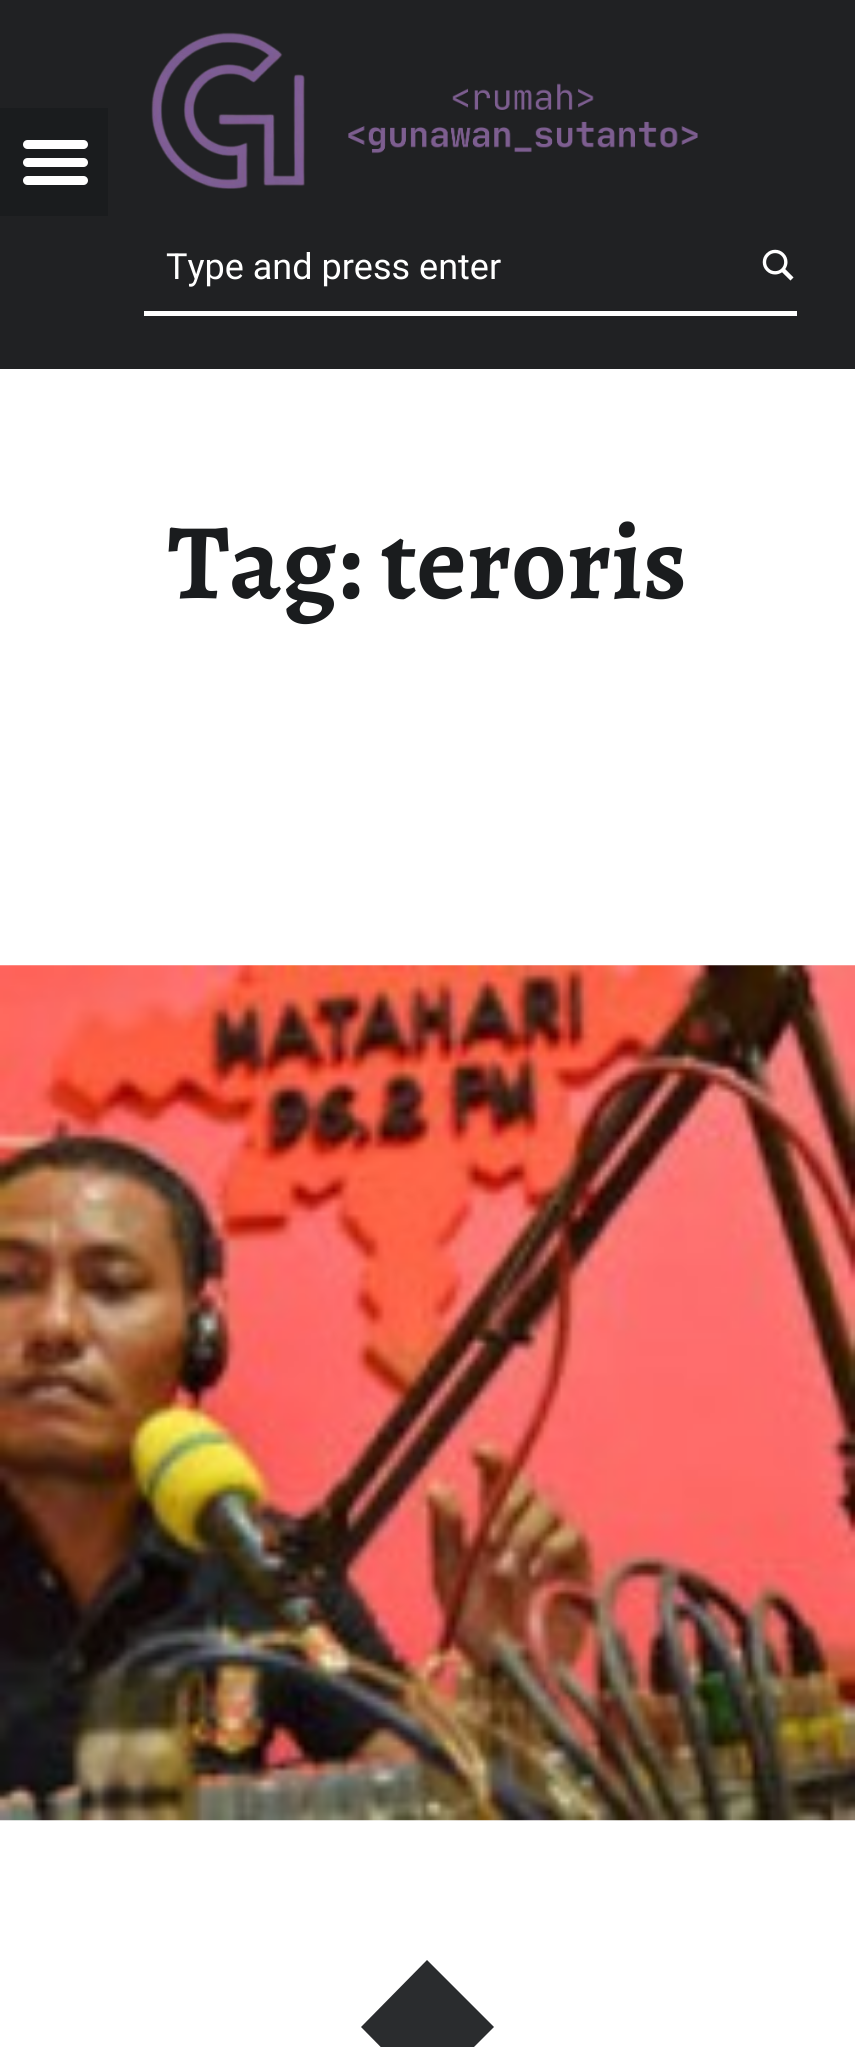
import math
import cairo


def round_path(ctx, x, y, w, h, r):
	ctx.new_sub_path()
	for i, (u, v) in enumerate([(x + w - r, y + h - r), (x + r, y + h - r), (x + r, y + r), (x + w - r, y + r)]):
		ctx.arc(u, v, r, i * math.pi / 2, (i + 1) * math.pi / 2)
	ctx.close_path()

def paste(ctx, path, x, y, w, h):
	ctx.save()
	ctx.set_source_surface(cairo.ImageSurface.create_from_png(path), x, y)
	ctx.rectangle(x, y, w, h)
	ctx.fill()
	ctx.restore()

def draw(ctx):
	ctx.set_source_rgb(1, 1, 1)
	ctx.paint()
	ctx.set_source_rgb(0.125, 0.129, 0.137)
	ctx.rectangle(0, 0, 855, 369)
	ctx.fill()
	ctx.set_source_rgb(0.102, 0.11, 0.118)
	ctx.rectangle(0, 108, 108, 108)
	ctx.fill()
	ctx.set_source_rgb(1, 1, 1)
	round_path(ctx, 23, 140, 65, 9, 4.5)
	ctx.fill()
	round_path(ctx, 23, 158, 65, 9, 4.5)
	ctx.fill()
	round_path(ctx, 23, 176, 65, 9, 4.5)
	ctx.fill()
	paste(ctx, 'media/1.png', 151, 32, 547, 157)
	ctx.rectangle(144, 311, 653, 5)
	ctx.fill()
	ctx.select_font_face('Roboto')
	ctx.set_font_size(36)
	ctx.move_to(166, 279)
	ctx.show_text('Type and press enter')
	paste(ctx, 'media/2.png', 762, 249, 32, 32)
	ctx.select_font_face('Alegreya', cairo.FONT_SLANT_NORMAL, cairo.FONT_WEIGHT_BOLD)
	ctx.set_font_size(108)
	ctx.set_source_rgb(0.102, 0.11, 0.118)
	ctx.move_to(168, 598)
	ctx.show_text('Tag: teroris')
	paste(ctx, 'media/3.png', 0, 965, 855, 856)
	ctx.set_source_rgb(0.165, 0.173, 0.18)
	ctx.new_path()
	ctx.move_to(427, 1960)
	ctx.line_to(494, 2027)
	ctx.line_to(427, 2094)
	ctx.line_to(361, 2027)
	ctx.close_path()
	ctx.fill()


surface = cairo.ImageSurface(cairo.FORMAT_RGB24, 855, 2047)
ctx = cairo.Context(surface)
options = cairo.FontOptions()
options.set_hint_metrics(cairo.HINT_METRICS_OFF)
options.set_hint_style(cairo.HINT_STYLE_NONE)
ctx.set_font_options(options)
ctx.set_miter_limit(4)
draw(ctx)
surface.write_to_png('image.png')
